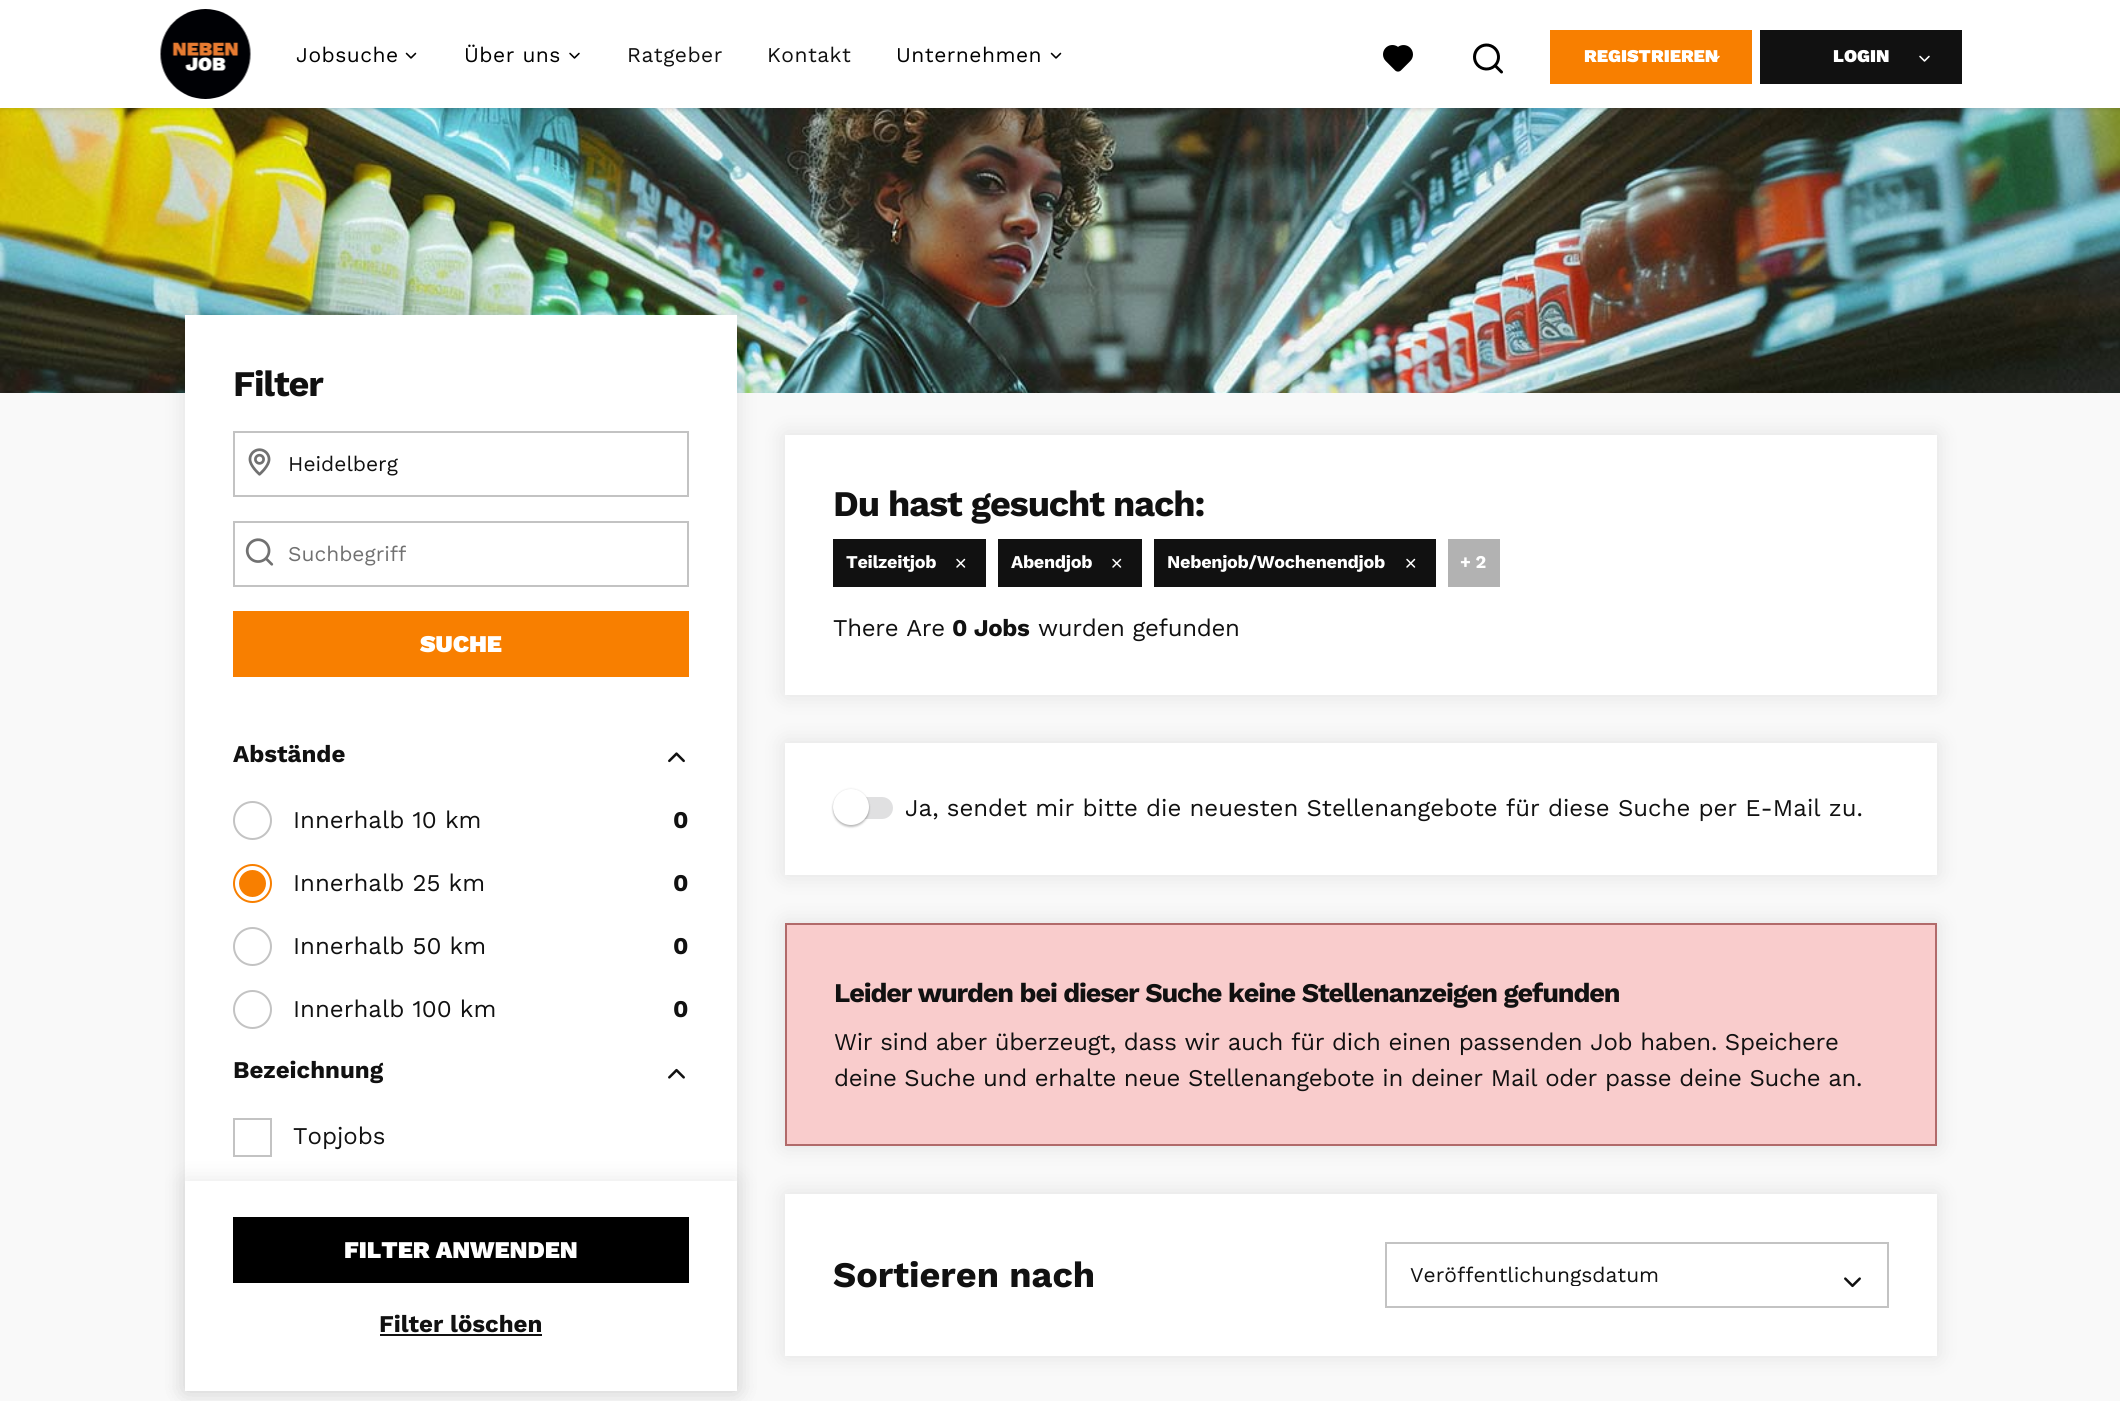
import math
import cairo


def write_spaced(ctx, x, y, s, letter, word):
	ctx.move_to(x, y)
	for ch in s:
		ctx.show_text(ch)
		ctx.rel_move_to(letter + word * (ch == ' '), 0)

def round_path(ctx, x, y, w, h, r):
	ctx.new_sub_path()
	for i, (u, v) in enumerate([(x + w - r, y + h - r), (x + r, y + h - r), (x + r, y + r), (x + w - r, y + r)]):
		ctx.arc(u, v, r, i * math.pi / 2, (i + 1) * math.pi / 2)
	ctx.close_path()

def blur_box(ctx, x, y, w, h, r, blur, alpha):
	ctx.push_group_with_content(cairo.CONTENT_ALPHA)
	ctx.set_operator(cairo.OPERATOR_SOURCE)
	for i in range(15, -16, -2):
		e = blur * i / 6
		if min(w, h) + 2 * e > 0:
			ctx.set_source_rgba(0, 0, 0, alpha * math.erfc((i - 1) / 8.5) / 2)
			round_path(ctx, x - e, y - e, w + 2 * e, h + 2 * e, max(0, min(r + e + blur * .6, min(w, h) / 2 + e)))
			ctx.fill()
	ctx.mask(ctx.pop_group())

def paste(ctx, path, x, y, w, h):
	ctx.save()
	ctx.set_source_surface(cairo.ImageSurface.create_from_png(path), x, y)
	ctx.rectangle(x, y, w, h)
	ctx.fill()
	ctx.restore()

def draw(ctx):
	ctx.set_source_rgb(0.976, 0.976, 0.976)
	ctx.paint()
	paste(ctx, 'media/8.png', 0, 108, 2120, 285)
	ctx.set_source_rgb(0, 0, 0)
	blur_box(ctx, 0, 2, 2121, 108, 0, 1.5, 0.1)
	ctx.set_source_rgb(1, 1, 1)
	ctx.rectangle(0, 0, 2120, 108)
	ctx.fill()
	paste(ctx, 'media/1.png', 160, 9, 91, 90)
	ctx.select_font_face('Work Sans')
	ctx.set_font_size(21)
	ctx.set_source_rgb(0, 0, 0)
	write_spaced(ctx, 296, 62, 'Jobsuche', 0.5, 0)
	paste(ctx, 'media/2.png', 405, 52, 12, 7)
	write_spaced(ctx, 464, 62, 'Über uns', 0.5, 0)
	paste(ctx, 'media/3.png', 569, 52, 11, 7)
	ctx.set_source_rgb(0.067, 0.067, 0.067)
	write_spaced(ctx, 627, 62, 'Ratgeber', 0.5, 0)
	write_spaced(ctx, 767, 62, 'Kontakt', 0.5, 0)
	ctx.set_source_rgb(0, 0, 0)
	write_spaced(ctx, 896, 62, 'Unternehmen', 0.5, 0)
	paste(ctx, 'media/2.png', 1050, 52, 12, 7)
	paste(ctx, 'media/4.png', 1383, 45, 30, 27)
	paste(ctx, 'media/5.png', 1473, 43, 30, 31)
	ctx.set_source_rgb(0.969, 0.498, 0)
	ctx.rectangle(1550, 30, 202, 54)
	ctx.fill()
	ctx.select_font_face('Work Sans Black')
	ctx.set_font_size(18)
	ctx.set_source_rgb(1, 1, 1)
	ctx.move_to(1584, 62)
	ctx.show_text('REGISTRIEREN')
	paste(ctx, 'media/6.png', 1709, 55, 11, 5)
	ctx.set_source_rgb(0.067, 0.067, 0.067)
	ctx.rectangle(1760, 30, 202, 54)
	ctx.fill()
	ctx.set_source_rgb(1, 1, 1)
	ctx.move_to(1833, 62)
	ctx.show_text('LOGIN')
	paste(ctx, 'media/7.png', 1919, 55, 11, 7)
	ctx.set_source_rgb(0, 0, 0)
	blur_box(ctx, 185, 315, 552, 1076, 0, 11, 0.1)
	ctx.set_source_rgb(1, 1, 1)
	ctx.rectangle(185, 315, 552, 866)
	ctx.fill()
	ctx.select_font_face('Work Sans', cairo.FONT_SLANT_NORMAL, cairo.FONT_WEIGHT_BOLD)
	ctx.set_font_size(36)
	ctx.set_source_rgb(0.067, 0.067, 0.067)
	write_spaced(ctx, 233, 396, 'Filter', -1.12, 0)
	ctx.rectangle(234, 432, 454, 64)
	ctx.set_source_rgb(0.765, 0.765, 0.765)
	ctx.stroke()
	paste(ctx, 'media/9.png', 248, 448, 23, 28)
	ctx.select_font_face('Work Sans')
	ctx.set_font_size(21)
	ctx.set_source_rgb(0.067, 0.067, 0.067)
	ctx.move_to(288, 471)
	ctx.show_text('Heidelberg')
	ctx.rectangle(234, 522, 454, 64)
	ctx.set_source_rgb(0.765, 0.765, 0.765)
	ctx.stroke()
	paste(ctx, 'media/10.png', 245, 538, 29, 28)
	ctx.set_source_rgb(0.443, 0.443, 0.443)
	ctx.move_to(288, 561)
	ctx.show_text('Suchbegriff')
	ctx.set_source_rgb(0.969, 0.498, 0)
	ctx.rectangle(233, 611, 456, 66)
	ctx.fill()
	ctx.select_font_face('Work Sans Black')
	ctx.set_font_size(24)
	ctx.set_source_rgb(1, 1, 1)
	ctx.move_to(420, 652)
	ctx.show_text('SUCHE')
	ctx.select_font_face('Work Sans', cairo.FONT_SLANT_NORMAL, cairo.FONT_WEIGHT_BOLD)
	ctx.set_source_rgb(0.067, 0.067, 0.067)
	ctx.move_to(233, 762)
	ctx.show_text('Abstände')
	paste(ctx, 'media/11.png', 668, 752, 17, 11)
	ctx.arc(252.5, 820.5, 18.5, 0, 2 * math.pi)
	ctx.set_source_rgb(0.765, 0.765, 0.765)
	ctx.stroke()
	ctx.select_font_face('Work Sans')
	ctx.set_source_rgb(0.067, 0.067, 0.067)
	ctx.move_to(293, 828)
	ctx.show_text('Innerhalb 10 km')
	ctx.select_font_face('Work Sans', cairo.FONT_SLANT_NORMAL, cairo.FONT_WEIGHT_BOLD)
	ctx.move_to(673, 828)
	ctx.show_text('0')
	ctx.new_path()
	ctx.arc(252.5, 883.5, 18.5, 0, 2 * math.pi)
	ctx.set_source_rgb(0.969, 0.498, 0)
	ctx.stroke()
	ctx.arc(252.5, 883.5, 13.5, 0, 2 * math.pi)
	ctx.fill()
	ctx.select_font_face('Work Sans')
	ctx.set_source_rgb(0.067, 0.067, 0.067)
	ctx.move_to(293, 891)
	ctx.show_text('Innerhalb 25 km')
	ctx.select_font_face('Work Sans', cairo.FONT_SLANT_NORMAL, cairo.FONT_WEIGHT_BOLD)
	ctx.move_to(673, 891)
	ctx.show_text('0')
	ctx.new_path()
	ctx.arc(252.5, 946.5, 18.5, 0, 2 * math.pi)
	ctx.set_source_rgb(0.765, 0.765, 0.765)
	ctx.stroke()
	ctx.select_font_face('Work Sans')
	ctx.set_source_rgb(0.067, 0.067, 0.067)
	ctx.move_to(293, 954)
	ctx.show_text('Innerhalb 50 km')
	ctx.select_font_face('Work Sans', cairo.FONT_SLANT_NORMAL, cairo.FONT_WEIGHT_BOLD)
	ctx.move_to(673, 954)
	ctx.show_text('0')
	ctx.new_path()
	ctx.arc(252.5, 1009.5, 18.5, 0, 2 * math.pi)
	ctx.set_source_rgb(0.765, 0.765, 0.765)
	ctx.stroke()
	ctx.select_font_face('Work Sans')
	ctx.set_source_rgb(0.067, 0.067, 0.067)
	ctx.move_to(293, 1017)
	ctx.show_text('Innerhalb 100 km')
	ctx.select_font_face('Work Sans', cairo.FONT_SLANT_NORMAL, cairo.FONT_WEIGHT_BOLD)
	ctx.move_to(673, 1017)
	ctx.show_text('0')
	ctx.move_to(233, 1078)
	ctx.show_text('Bezeichnung')
	paste(ctx, 'media/12.png', 668, 1068, 17, 11)
	ctx.rectangle(234, 1119, 37, 37)
	ctx.set_source_rgb(0.765, 0.765, 0.765)
	ctx.stroke()
	ctx.select_font_face('Work Sans')
	ctx.set_source_rgb(0.067, 0.067, 0.067)
	ctx.move_to(293, 1144)
	ctx.show_text('Topjobs')
	ctx.set_source_rgb(0, 0, 0)
	blur_box(ctx, 185, 1181, 552, 210, 0, 11, 0.1)
	ctx.set_source_rgb(1, 1, 1)
	ctx.rectangle(185, 1181, 552, 210)
	ctx.fill()
	ctx.set_source_rgb(0, 0, 0)
	ctx.rectangle(233, 1217, 456, 66)
	ctx.fill()
	ctx.select_font_face('Work Sans Black')
	ctx.set_source_rgb(1, 1, 1)
	ctx.move_to(344, 1258)
	ctx.show_text('FILTER ANWENDEN')
	ctx.select_font_face('Work Sans', cairo.FONT_SLANT_NORMAL, cairo.FONT_WEIGHT_BOLD)
	ctx.set_source_rgb(0.067, 0.067, 0.067)
	ctx.move_to(379, 1332)
	ctx.show_text('Filter löschen')
	ctx.rectangle(380, 1334, 162, 2)
	ctx.fill()
	ctx.set_source_rgb(0, 0, 0)
	blur_box(ctx, 785, 435, 1152, 260, 0, 11, 0.1)
	ctx.set_source_rgb(1, 1, 1)
	ctx.rectangle(785, 435, 1152, 260)
	ctx.fill()
	ctx.set_font_size(36)
	ctx.set_source_rgb(0.067, 0.067, 0.067)
	write_spaced(ctx, 833, 516, 'Du hast gesucht nach:', -1.12, 0)
	ctx.rectangle(833, 539, 153, 48)
	ctx.fill()
	ctx.set_font_size(18)
	ctx.set_source_rgb(1, 1, 1)
	write_spaced(ctx, 846, 568, 'Teilzeitjob', -0.3, 0)
	paste(ctx, 'media/13.png', 956, 558, 10, 10)
	ctx.set_source_rgb(0.067, 0.067, 0.067)
	ctx.rectangle(998, 539, 144, 48)
	ctx.fill()
	ctx.set_source_rgb(1, 1, 1)
	write_spaced(ctx, 1011, 568, 'Abendjob', -0.3, 0)
	paste(ctx, 'media/13.png', 1112, 558, 10, 10)
	ctx.set_source_rgb(0.067, 0.067, 0.067)
	ctx.rectangle(1154, 539, 282, 48)
	ctx.fill()
	ctx.set_source_rgb(1, 1, 1)
	write_spaced(ctx, 1167, 568, 'Nebenjob/Wochenendjob', -0.3, 0)
	paste(ctx, 'media/13.png', 1406, 558, 10, 10)
	ctx.set_source_rgb(0.698, 0.698, 0.698)
	ctx.rectangle(1448, 539, 52, 48)
	ctx.fill()
	ctx.set_source_rgb(1, 1, 1)
	write_spaced(ctx, 1460, 568, '+ 2', -0.3, 0)
	ctx.select_font_face('Work Sans')
	ctx.set_font_size(24)
	ctx.set_source_rgb(0.067, 0.067, 0.067)
	write_spaced(ctx, 833, 636, 'There Are', -0.3, 0)
	ctx.select_font_face('Work Sans', cairo.FONT_SLANT_NORMAL, cairo.FONT_WEIGHT_BOLD)
	write_spaced(ctx, 952, 636, '0 Jobs', -0.3, 0)
	ctx.select_font_face('Work Sans')
	write_spaced(ctx, 1038, 636, 'wurden gefunden', -0.3, 0)
	ctx.set_source_rgb(0, 0, 0)
	blur_box(ctx, 785, 743, 1152, 132, 0, 11, 0.1)
	ctx.set_source_rgb(1, 1, 1)
	ctx.rectangle(785, 743, 1152, 132)
	ctx.fill()
	ctx.set_source_rgb(0.878, 0.878, 0.882)
	round_path(ctx, 833, 797, 60, 22, 11)
	ctx.fill()
	ctx.set_source_rgb(0, 0, 0)
	blur_box(ctx, 833, 789, 36, 36, 18, 1, 0.12)
	blur_box(ctx, 833, 791, 36, 36, 18, 1, 0.24)
	ctx.set_source_rgb(1, 1, 1)
	ctx.arc(851, 807, 18, 0, 2 * math.pi)
	ctx.fill()
	ctx.set_source_rgb(0.067, 0.067, 0.067)
	ctx.move_to(905, 816)
	ctx.show_text('Ja, sendet mir bitte die neuesten Stellenangebote für diese Suche per E-Mail zu.')
	ctx.set_source_rgb(0, 0, 0)
	blur_box(ctx, 785, 923, 1152, 223, 0, 11, 0.1)
	ctx.set_source_rgb(0.976, 0.8, 0.8)
	ctx.rectangle(786, 924, 1150, 221)
	ctx.fill_preserve()
	ctx.set_source_rgb(0.694, 0.416, 0.416)
	ctx.stroke()
	ctx.select_font_face('Work Sans', cairo.FONT_SLANT_NORMAL, cairo.FONT_WEIGHT_BOLD)
	ctx.set_font_size(27)
	ctx.set_source_rgb(0.067, 0.067, 0.067)
	write_spaced(ctx, 834, 1002, 'Leider wurden bei dieser Suche keine Stellenanzeigen gefunden', -1.12, 0)
	ctx.select_font_face('Work Sans')
	ctx.set_font_size(24)
	write_spaced(ctx, 834, 1050, 'Wir sind aber überzeugt, dass wir auch für dich einen passenden Job haben. Speichere', -0.3, 0)
	write_spaced(ctx, 834, 1086, 'deine Suche und erhalte neue Stellenangebote in deiner Mail oder passe deine Suche an.', -0.3, 0)
	ctx.set_source_rgb(0, 0, 0)
	blur_box(ctx, 785, 1194, 1152, 162, 0, 11, 0.1)
	ctx.set_source_rgb(1, 1, 1)
	ctx.rectangle(785, 1194, 1152, 162)
	ctx.fill()
	ctx.select_font_face('Work Sans', cairo.FONT_SLANT_NORMAL, cairo.FONT_WEIGHT_BOLD)
	ctx.set_font_size(36)
	ctx.set_source_rgb(0.067, 0.067, 0.067)
	ctx.move_to(833, 1287)
	ctx.show_text('Sortieren nach')
	ctx.rectangle(1386, 1243, 502, 64)
	ctx.set_source_rgb(0.765, 0.765, 0.765)
	ctx.stroke()
	ctx.save()
	ctx.rectangle(1410, 1265, 453, 21)
	ctx.clip()
	ctx.select_font_face('Work Sans')
	ctx.set_font_size(21)
	ctx.set_source_rgb(0.067, 0.067, 0.067)
	ctx.move_to(1410, 1282)
	ctx.show_text('Veröffentlichungsdatum')
	ctx.restore()
	paste(ctx, 'media/14.png', 1844, 1277, 17, 11)


surface = cairo.ImageSurface(cairo.FORMAT_RGB24, 2120, 1401)
ctx = cairo.Context(surface)
options = cairo.FontOptions()
options.set_hint_metrics(cairo.HINT_METRICS_OFF)
options.set_hint_style(cairo.HINT_STYLE_NONE)
ctx.set_font_options(options)
ctx.set_miter_limit(4)
draw(ctx)
surface.write_to_png('image.png')
